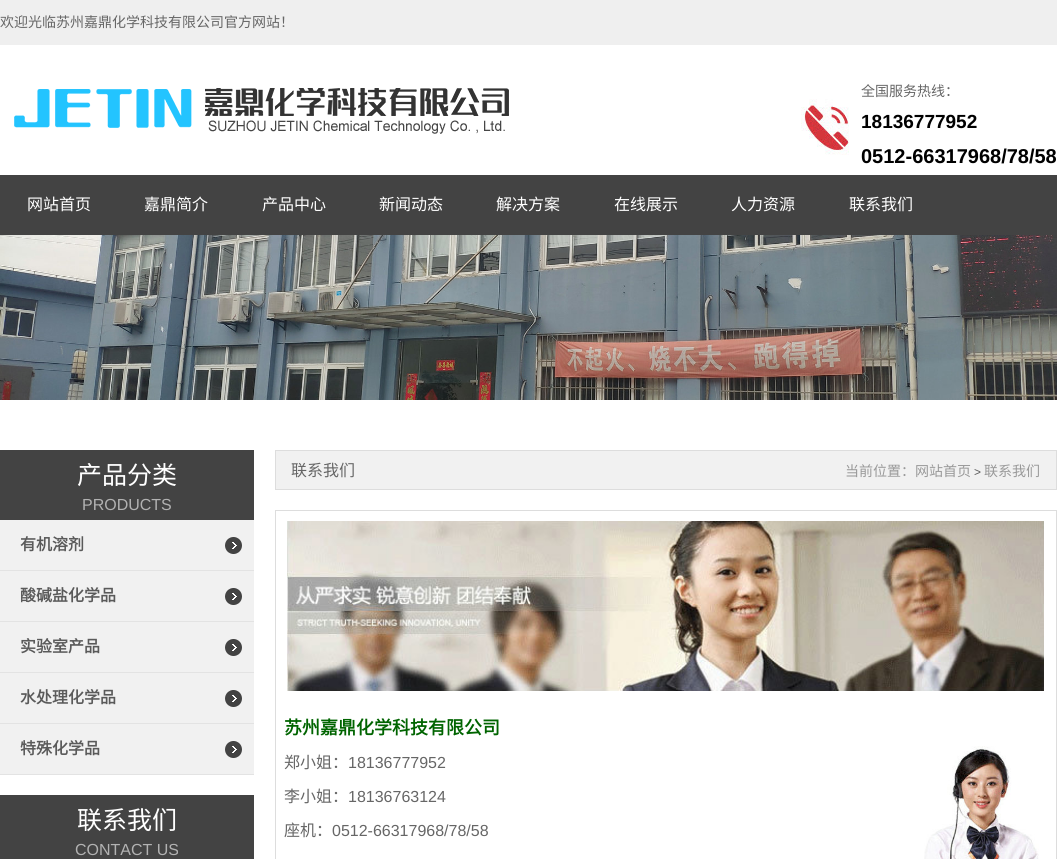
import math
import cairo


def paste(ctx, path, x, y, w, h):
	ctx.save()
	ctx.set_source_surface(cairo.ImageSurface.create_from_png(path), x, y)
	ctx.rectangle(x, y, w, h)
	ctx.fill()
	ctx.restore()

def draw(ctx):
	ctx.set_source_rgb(1, 1, 1)
	ctx.paint()
	ctx.set_source_rgb(0.937, 0.937, 0.937)
	ctx.rectangle(0, 0, 1057, 45)
	ctx.fill()
	ctx.select_font_face('Noto Sans CJK SC')
	ctx.set_font_size(14)
	ctx.set_source_rgb(0.4, 0.4, 0.4)
	ctx.move_to(0, 27)
	ctx.show_text('欢迎光临苏州嘉鼎化学科技有限公司官方网站！')
	paste(ctx, 'media/1.png', 14, 88, 495, 46)
	paste(ctx, 'media/2.png', 801, 99, 48, 56)
	ctx.move_to(861, 96)
	ctx.show_text('全国服务热线：')
	ctx.select_font_face('Liberation Sans', cairo.FONT_SLANT_NORMAL, cairo.FONT_WEIGHT_BOLD)
	ctx.set_font_size(19)
	ctx.set_source_rgb(0, 0, 0)
	ctx.move_to(861, 128)
	ctx.show_text('18136777952')
	ctx.set_font_size(20)
	ctx.move_to(861, 163)
	ctx.show_text('0512-66317968/78/58')
	ctx.set_source_rgb(0.263, 0.263, 0.263)
	ctx.rectangle(0, 175, 1057, 60)
	ctx.fill()
	ctx.select_font_face('Noto Sans CJK SC')
	ctx.set_font_size(16)
	ctx.set_source_rgb(1, 1, 1)
	for x, y, s in [
		(27, 210, '网站首页'),
		(144, 210, '嘉鼎简介'),
		(262, 210, '产品中心'),
		(379, 210, '新闻动态'),
		(496, 210, '解决方案'),
		(614, 210, '在线展示'),
		(731, 210, '人力资源'),
		(849, 210, '联系我们'),
	]:
		ctx.move_to(x, y)
		ctx.show_text(s)
	paste(ctx, 'media/3.png', 0, 235, 1057, 165)
	ctx.set_source_rgb(0.263, 0.263, 0.263)
	ctx.rectangle(0, 450, 254, 70)
	ctx.fill()
	ctx.set_font_size(25)
	ctx.set_source_rgb(1, 1, 1)
	ctx.move_to(77, 484)
	ctx.show_text('产品分类')
	ctx.select_font_face('Liberation Sans')
	ctx.set_font_size(16)
	ctx.set_source_rgb(0.698, 0.698, 0.698)
	ctx.move_to(82, 510)
	ctx.show_text('PRODUCTS')
	ctx.set_source_rgb(0.945, 0.945, 0.945)
	ctx.rectangle(0, 520, 254, 254)
	ctx.fill()
	paste(ctx, 'media/4.png', 225, 537, 17, 17)
	ctx.set_source_rgb(0.89, 0.89, 0.89)
	ctx.rectangle(0, 570, 254, 1)
	ctx.fill()
	ctx.select_font_face('Noto Sans CJK SC', cairo.FONT_SLANT_NORMAL, cairo.FONT_WEIGHT_BOLD)
	ctx.set_source_rgb(0.353, 0.353, 0.353)
	ctx.move_to(20, 550)
	ctx.show_text('有机溶剂')
	paste(ctx, 'media/4.png', 225, 588, 17, 17)
	ctx.set_source_rgb(0.89, 0.89, 0.89)
	ctx.rectangle(0, 621, 254, 1)
	ctx.fill()
	ctx.set_source_rgb(0.353, 0.353, 0.353)
	ctx.move_to(20, 601)
	ctx.show_text('酸碱盐化学品')
	paste(ctx, 'media/4.png', 225, 639, 17, 17)
	ctx.set_source_rgb(0.89, 0.89, 0.89)
	ctx.rectangle(0, 672, 254, 1)
	ctx.fill()
	ctx.set_source_rgb(0.353, 0.353, 0.353)
	ctx.move_to(20, 652)
	ctx.show_text('实验室产品')
	paste(ctx, 'media/4.png', 225, 690, 17, 17)
	ctx.set_source_rgb(0.89, 0.89, 0.89)
	ctx.rectangle(0, 723, 254, 1)
	ctx.fill()
	ctx.set_source_rgb(0.353, 0.353, 0.353)
	ctx.move_to(20, 703)
	ctx.show_text('水处理化学品')
	paste(ctx, 'media/4.png', 225, 741, 17, 17)
	ctx.set_source_rgb(0.89, 0.89, 0.89)
	ctx.rectangle(0, 774, 254, 1)
	ctx.fill()
	ctx.set_source_rgb(0.353, 0.353, 0.353)
	ctx.move_to(20, 754)
	ctx.show_text('特殊化学品')
	ctx.set_source_rgb(0.263, 0.263, 0.263)
	ctx.rectangle(0, 795, 254, 64)
	ctx.fill()
	ctx.select_font_face('Noto Sans CJK SC')
	ctx.set_font_size(25)
	ctx.set_source_rgb(1, 1, 1)
	ctx.move_to(77, 829)
	ctx.show_text('联系我们')
	ctx.select_font_face('Liberation Sans')
	ctx.set_font_size(16)
	ctx.set_source_rgb(0.698, 0.698, 0.698)
	ctx.move_to(75, 855)
	ctx.show_text('CONTACT US')
	ctx.set_source_rgb(0.945, 0.945, 0.945)
	ctx.rectangle(275.5, 450.5, 781, 39)
	ctx.fill_preserve()
	ctx.set_source_rgb(0.867, 0.867, 0.867)
	ctx.set_line_width(1)
	ctx.stroke()
	ctx.select_font_face('Noto Sans CJK SC')
	ctx.set_source_rgb(0.4, 0.4, 0.4)
	ctx.move_to(291, 476)
	ctx.show_text('联系我们')
	ctx.set_font_size(14)
	ctx.set_source_rgb(0.6, 0.6, 0.6)
	ctx.move_to(845, 476)
	ctx.show_text('当前位置：网站首页')
	ctx.select_font_face('Liberation Sans')
	ctx.set_font_size(12)
	ctx.set_source_rgb(0.353, 0.353, 0.353)
	ctx.move_to(974, 476)
	ctx.show_text('>')
	ctx.select_font_face('Noto Sans CJK SC')
	ctx.set_font_size(14)
	ctx.set_source_rgb(0.6, 0.6, 0.6)
	ctx.move_to(984, 476)
	ctx.show_text('联系我们')
	ctx.rectangle(275.5, 510.5, 781, 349)
	ctx.set_source_rgb(0.867, 0.867, 0.867)
	ctx.stroke()
	paste(ctx, 'media/5.png', 287, 521, 757, 170)
	ctx.select_font_face('Noto Sans CJK SC', cairo.FONT_SLANT_NORMAL, cairo.FONT_WEIGHT_BOLD)
	ctx.set_font_size(18)
	ctx.set_source_rgb(0, 0.392, 0)
	ctx.move_to(284, 734)
	ctx.show_text('苏州嘉鼎化学科技有限公司')
	paste(ctx, 'media/6.png', 924, 746, 115, 113)
	ctx.select_font_face('Noto Sans CJK SC')
	ctx.set_font_size(16)
	ctx.set_source_rgb(0.4, 0.4, 0.4)
	ctx.move_to(284, 768)
	ctx.show_text('郑小姐：')
	ctx.select_font_face('Liberation Sans')
	ctx.move_to(348, 768)
	ctx.show_text('18136777952')
	ctx.select_font_face('Noto Sans CJK SC')
	ctx.move_to(284, 802)
	ctx.show_text('李小姐：')
	ctx.select_font_face('Liberation Sans')
	ctx.move_to(348, 802)
	ctx.show_text('18136763124')
	ctx.select_font_face('Noto Sans CJK SC')
	ctx.move_to(284, 836)
	ctx.show_text('座机：')
	ctx.select_font_face('Liberation Sans')
	ctx.move_to(332, 836)
	ctx.show_text('0512-66317968/78/58')


surface = cairo.ImageSurface(cairo.FORMAT_RGB24, 1057, 859)
ctx = cairo.Context(surface)
options = cairo.FontOptions()
options.set_hint_metrics(cairo.HINT_METRICS_OFF)
options.set_hint_style(cairo.HINT_STYLE_NONE)
ctx.set_font_options(options)
ctx.set_miter_limit(4)
draw(ctx)
surface.write_to_png('image.png')
